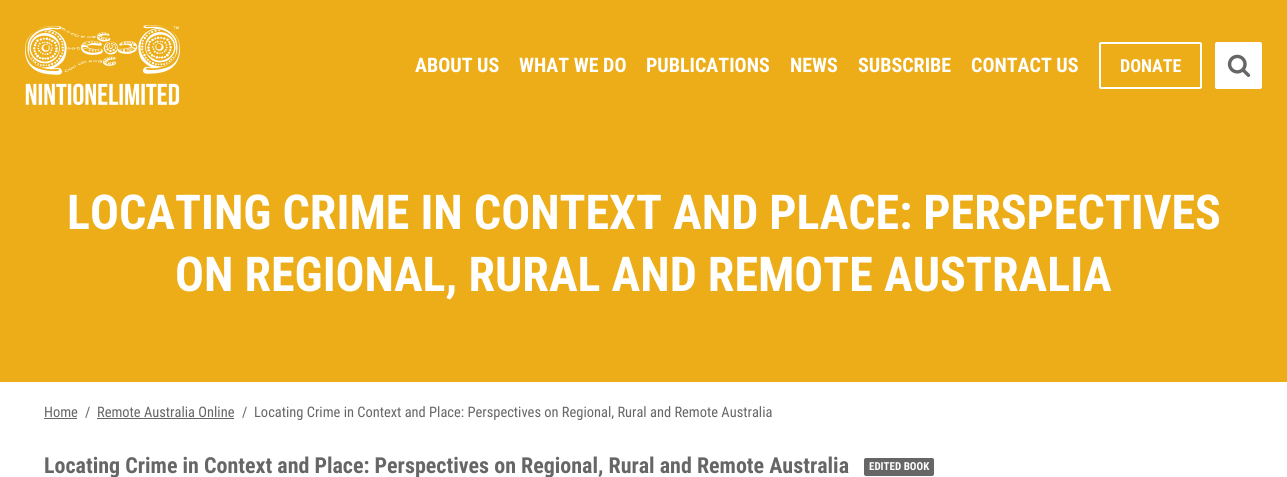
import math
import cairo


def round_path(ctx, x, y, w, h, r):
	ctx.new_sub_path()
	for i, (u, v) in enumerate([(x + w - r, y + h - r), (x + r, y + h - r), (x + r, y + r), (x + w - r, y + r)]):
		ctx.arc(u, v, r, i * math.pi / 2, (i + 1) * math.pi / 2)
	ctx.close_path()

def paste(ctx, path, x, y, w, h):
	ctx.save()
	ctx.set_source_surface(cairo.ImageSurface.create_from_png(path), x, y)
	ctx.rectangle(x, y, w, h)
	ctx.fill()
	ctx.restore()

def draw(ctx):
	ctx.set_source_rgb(1, 1, 1)
	ctx.paint()
	ctx.set_source_rgb(0.922, 0.678, 0.094)
	ctx.rectangle(0, 0, 1287, 382)
	ctx.fill()
	paste(ctx, 'media/1.png', 25, 25, 155, 80)
	ctx.select_font_face('Roboto Condensed', cairo.FONT_SLANT_NORMAL, cairo.FONT_WEIGHT_BOLD)
	ctx.set_font_size(20)
	ctx.set_source_rgb(1, 1, 1)
	for x, y, s in [
		(415, 72, 'ABOUT US'),
		(519, 72, 'WHAT WE DO'),
		(646, 72, 'PUBLICATIONS'),
		(790, 72, 'NEWS'),
		(858, 72, 'SUBSCRIBE'),
		(971, 72, 'CONTACT US'),
	]:
		ctx.move_to(x, y)
		ctx.show_text(s)
	round_path(ctx, 1100, 43, 101, 45, 1)
	ctx.stroke()
	ctx.set_font_size(18)
	ctx.move_to(1120, 72)
	ctx.show_text('DONATE')
	round_path(ctx, 1215, 42, 47, 47, 2)
	ctx.fill()
	paste(ctx, 'media/2.png', 1227, 54, 24, 23)
	ctx.set_font_size(48)
	ctx.move_to(67, 229)
	ctx.show_text('LOCATING CRIME IN CONTEXT AND PLACE: PERSPECTIVES')
	ctx.move_to(175, 291)
	ctx.show_text('ON REGIONAL, RURAL AND REMOTE AUSTRALIA')
	ctx.select_font_face('Roboto Condensed')
	ctx.set_font_size(14.45)
	ctx.set_source_rgb(0.4, 0.4, 0.4)
	ctx.move_to(44, 417)
	ctx.show_text('Home')
	ctx.rectangle(44, 418, 33, 1)
	ctx.fill()
	ctx.move_to(85, 417)
	ctx.show_text('/')
	ctx.move_to(97, 417)
	ctx.show_text('Remote Australia Online')
	ctx.rectangle(97, 418, 137, 1)
	ctx.fill()
	ctx.move_to(242, 417)
	ctx.show_text('/')
	ctx.move_to(254, 417)
	ctx.show_text('Locating Crime in Context and Place: Perspectives on Regional, Rural and Remote Australia')
	ctx.select_font_face('Roboto Condensed', cairo.FONT_SLANT_NORMAL, cairo.FONT_WEIGHT_BOLD)
	ctx.set_font_size(22)
	ctx.move_to(44, 473)
	ctx.show_text('Locating Crime in Context and Place: Perspectives on Regional, Rural and Remote Australia')
	round_path(ctx, 864, 458, 70, 18, 2)
	ctx.fill()
	ctx.set_font_size(11)
	ctx.set_source_rgb(1, 1, 1)
	ctx.move_to(869, 470)
	ctx.show_text('EDITED BOOK')


surface = cairo.ImageSurface(cairo.FORMAT_RGB24, 1287, 477)
ctx = cairo.Context(surface)
options = cairo.FontOptions()
options.set_hint_metrics(cairo.HINT_METRICS_OFF)
options.set_hint_style(cairo.HINT_STYLE_NONE)
ctx.set_font_options(options)
ctx.set_miter_limit(4)
draw(ctx)
surface.write_to_png('image.png')
